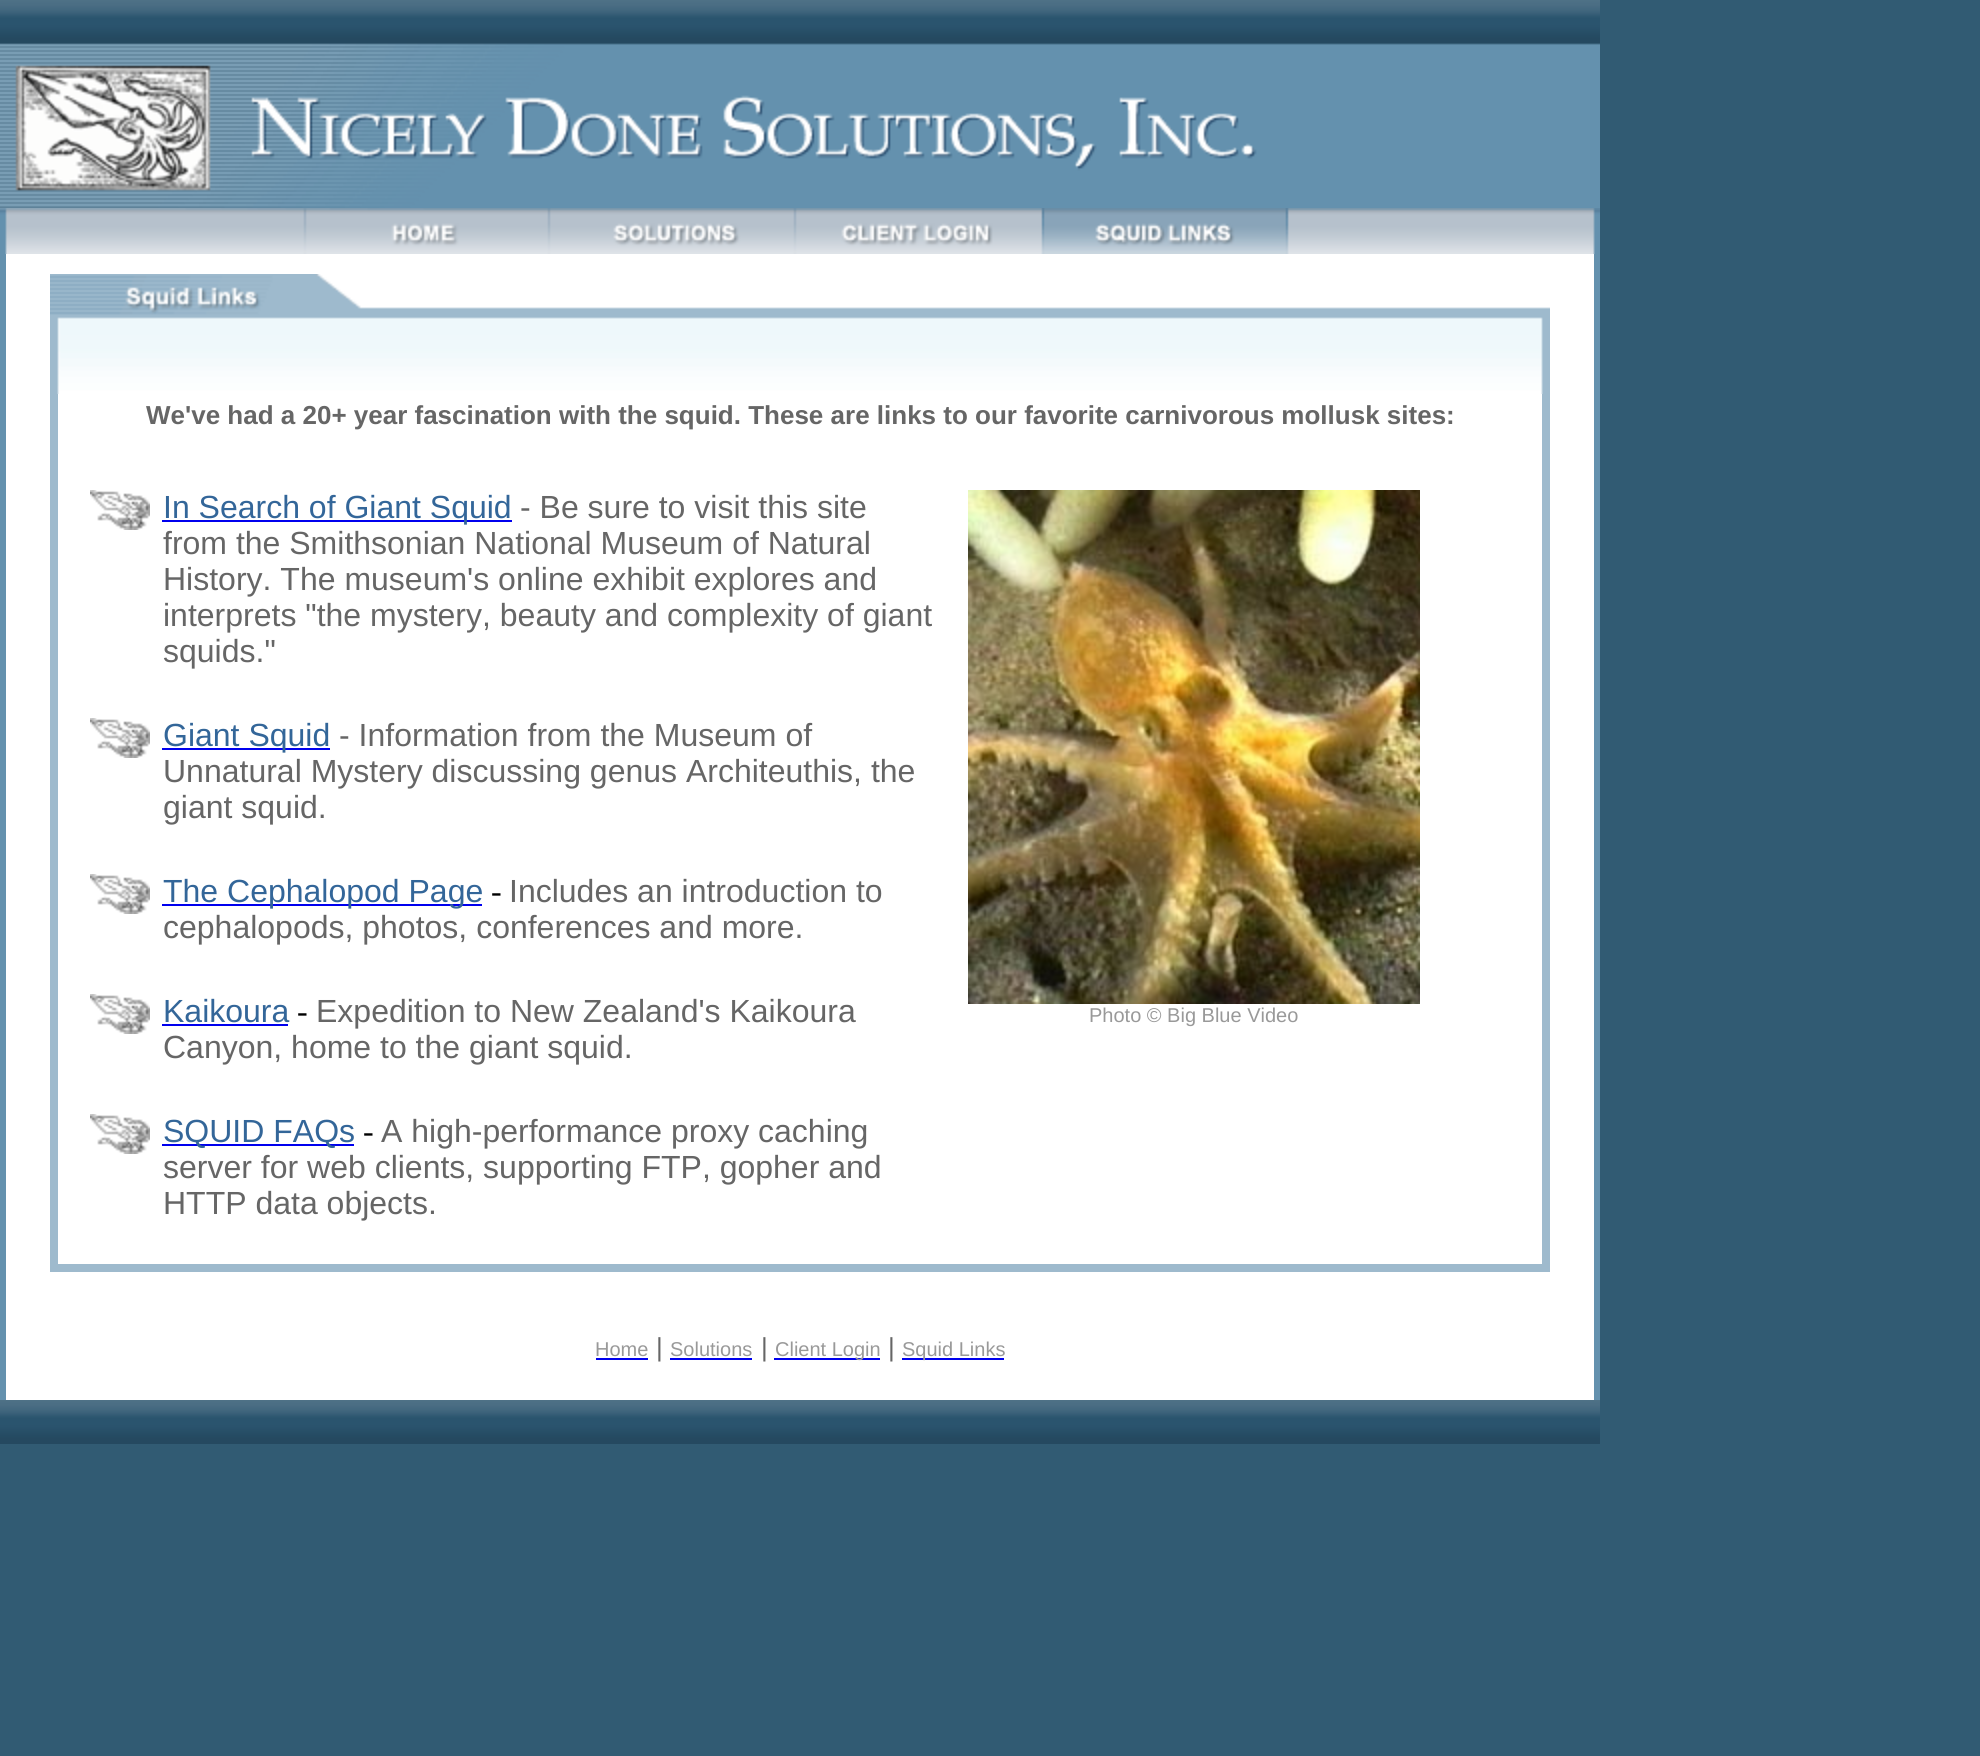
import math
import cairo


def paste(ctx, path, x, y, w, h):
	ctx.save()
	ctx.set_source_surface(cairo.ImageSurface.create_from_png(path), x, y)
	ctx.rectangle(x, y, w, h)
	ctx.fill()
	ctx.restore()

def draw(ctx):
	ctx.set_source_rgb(0.192, 0.357, 0.451)
	ctx.paint()
	ctx.set_source_rgb(1, 1, 1)
	ctx.rectangle(6, 254, 1588, 1146)
	ctx.fill()
	paste(ctx, 'media/1.png', 0, 0, 1600, 208)
	paste(ctx, 'media/2.png', 0, 208, 1600, 46)
	ctx.set_source_rgb(0.392, 0.569, 0.682)
	ctx.rectangle(0, 254, 6, 1146)
	ctx.fill()
	paste(ctx, 'media/3.png', 50, 274, 1500, 120)
	ctx.set_source_rgb(0.62, 0.729, 0.804)
	ctx.rectangle(50, 394, 8, 870)
	ctx.fill()
	ctx.select_font_face('Liberation Sans', cairo.FONT_SLANT_NORMAL, cairo.FONT_WEIGHT_BOLD)
	ctx.set_font_size(26)
	ctx.set_source_rgb(0.4, 0.4, 0.4)
	ctx.move_to(146, 424)
	ctx.show_text('We\'ve had a 20+ year fascination with the squid. These are links to our favorite carnivorous mollusk sites:')
	paste(ctx, 'media/4.png', 90, 490, 60, 40)
	ctx.set_source_rgb(0, 0, 0.933)
	ctx.rectangle(162, 520, 350, 2)
	ctx.fill()
	ctx.select_font_face('Liberation Sans')
	ctx.set_font_size(32)
	ctx.set_source_rgb(0.2, 0.4, 0.6)
	ctx.move_to(163, 518)
	ctx.show_text('In Search of Giant Squid')
	ctx.set_source_rgb(0.4, 0.4, 0.4)
	for x, y, s in [
		(520, 518, '- Be sure to visit this site'),
		(163, 554, 'from the Smithsonian National Museum of Natural'),
		(163, 590, 'History. The museum\'s online exhibit explores and'),
		(163, 626, 'interprets "the mystery, beauty and complexity of giant'),
		(163, 662, 'squids."'),
	]:
		ctx.move_to(x, y)
		ctx.show_text(s)
	paste(ctx, 'media/5.png', 968, 490, 452, 514)
	ctx.set_font_size(20)
	ctx.set_source_rgb(0.6, 0.6, 0.6)
	ctx.move_to(1089, 1022)
	ctx.show_text('Photo © Big Blue Video')
	paste(ctx, 'media/4.png', 90, 718, 60, 40)
	ctx.set_source_rgb(0, 0, 0.933)
	ctx.rectangle(162, 748, 168, 2)
	ctx.fill()
	ctx.set_font_size(32)
	ctx.set_source_rgb(0.2, 0.4, 0.6)
	ctx.move_to(163, 746)
	ctx.show_text('Giant Squid')
	ctx.set_source_rgb(0.4, 0.4, 0.4)
	for x, y, s in [
		(339, 746, '- Information from the Museum of'),
		(163, 782, 'Unnatural Mystery discussing genus Architeuthis, the'),
		(163, 818, 'giant squid.'),
	]:
		ctx.move_to(x, y)
		ctx.show_text(s)
	paste(ctx, 'media/4.png', 90, 874, 60, 40)
	ctx.set_source_rgb(0, 0, 0.933)
	ctx.rectangle(162, 904, 320, 2)
	ctx.fill()
	ctx.set_source_rgb(0.2, 0.4, 0.6)
	ctx.move_to(163, 902)
	ctx.show_text('The Cephalopod Page')
	ctx.select_font_face('Liberation Serif')
	ctx.set_source_rgb(0, 0, 0)
	ctx.move_to(491, 902)
	ctx.show_text('-')
	ctx.select_font_face('Liberation Sans')
	ctx.set_source_rgb(0.4, 0.4, 0.4)
	ctx.move_to(509, 902)
	ctx.show_text('Includes an introduction to')
	ctx.move_to(163, 938)
	ctx.show_text('cephalopods, photos, conferences and more.')
	paste(ctx, 'media/4.png', 90, 994, 60, 40)
	ctx.set_source_rgb(0.2, 0.4, 0.6)
	ctx.move_to(163, 1022)
	ctx.show_text('Kaikoura')
	ctx.set_source_rgb(0, 0, 0.933)
	ctx.rectangle(162, 1024, 126, 2)
	ctx.fill()
	ctx.select_font_face('Liberation Serif')
	ctx.set_source_rgb(0, 0, 0)
	ctx.move_to(297, 1022)
	ctx.show_text('-')
	ctx.select_font_face('Liberation Sans')
	ctx.set_source_rgb(0.4, 0.4, 0.4)
	ctx.move_to(316, 1022)
	ctx.show_text('Expedition to New Zealand\'s Kaikoura')
	ctx.move_to(163, 1058)
	ctx.show_text('Canyon, home to the giant squid.')
	paste(ctx, 'media/4.png', 90, 1114, 60, 40)
	ctx.set_source_rgb(0, 0, 0.933)
	ctx.rectangle(162, 1144, 192, 2)
	ctx.fill()
	ctx.set_source_rgb(0.2, 0.4, 0.6)
	ctx.move_to(163, 1142)
	ctx.show_text('SQUID FAQs')
	ctx.select_font_face('Liberation Serif')
	ctx.set_source_rgb(0, 0, 0)
	ctx.move_to(363, 1142)
	ctx.show_text('-')
	ctx.select_font_face('Liberation Sans')
	ctx.set_source_rgb(0.4, 0.4, 0.4)
	for x, y, s in [
		(381, 1142, 'A high-performance proxy caching'),
		(163, 1178, 'server for web clients, supporting FTP, gopher and'),
		(163, 1214, 'HTTP data objects.'),
	]:
		ctx.move_to(x, y)
		ctx.show_text(s)
	ctx.set_source_rgb(0.62, 0.729, 0.804)
	ctx.rectangle(1542, 394, 8, 870)
	ctx.rectangle(50, 1264, 1500, 8)
	ctx.fill()
	ctx.set_source_rgb(0.392, 0.569, 0.682)
	ctx.rectangle(1594, 254, 6, 1146)
	ctx.fill()
	ctx.set_font_size(20)
	ctx.set_source_rgb(0.6, 0.6, 0.6)
	ctx.move_to(595, 1356)
	ctx.show_text('Home')
	ctx.set_source_rgb(0, 0, 0.933)
	ctx.rectangle(596, 1358, 52, 2)
	ctx.fill()
	ctx.set_font_size(26)
	ctx.set_source_rgb(0.4, 0.4, 0.4)
	ctx.move_to(656, 1356)
	ctx.show_text('|')
	ctx.set_font_size(20)
	ctx.set_source_rgb(0.6, 0.6, 0.6)
	ctx.move_to(670, 1356)
	ctx.show_text('Solutions')
	ctx.set_source_rgb(0, 0, 0.933)
	ctx.rectangle(670, 1358, 82, 2)
	ctx.fill()
	ctx.set_font_size(26)
	ctx.set_source_rgb(0.4, 0.4, 0.4)
	ctx.move_to(761, 1356)
	ctx.show_text('|')
	ctx.set_source_rgb(0, 0, 0.933)
	ctx.rectangle(774, 1358, 106, 2)
	ctx.fill()
	ctx.set_font_size(20)
	ctx.set_source_rgb(0.6, 0.6, 0.6)
	ctx.move_to(775, 1356)
	ctx.show_text('Client Login')
	ctx.set_font_size(26)
	ctx.set_source_rgb(0.4, 0.4, 0.4)
	ctx.move_to(888, 1356)
	ctx.show_text('|')
	ctx.set_source_rgb(0, 0, 0.933)
	ctx.rectangle(902, 1358, 102, 2)
	ctx.fill()
	ctx.set_font_size(20)
	ctx.set_source_rgb(0.6, 0.6, 0.6)
	ctx.move_to(902, 1356)
	ctx.show_text('Squid Links')
	paste(ctx, 'media/6.png', 0, 1400, 1600, 44)


surface = cairo.ImageSurface(cairo.FORMAT_RGB24, 1980, 1756)
ctx = cairo.Context(surface)
options = cairo.FontOptions()
options.set_hint_metrics(cairo.HINT_METRICS_OFF)
options.set_hint_style(cairo.HINT_STYLE_NONE)
ctx.set_font_options(options)
ctx.set_miter_limit(4)
draw(ctx)
surface.write_to_png('image.png')
